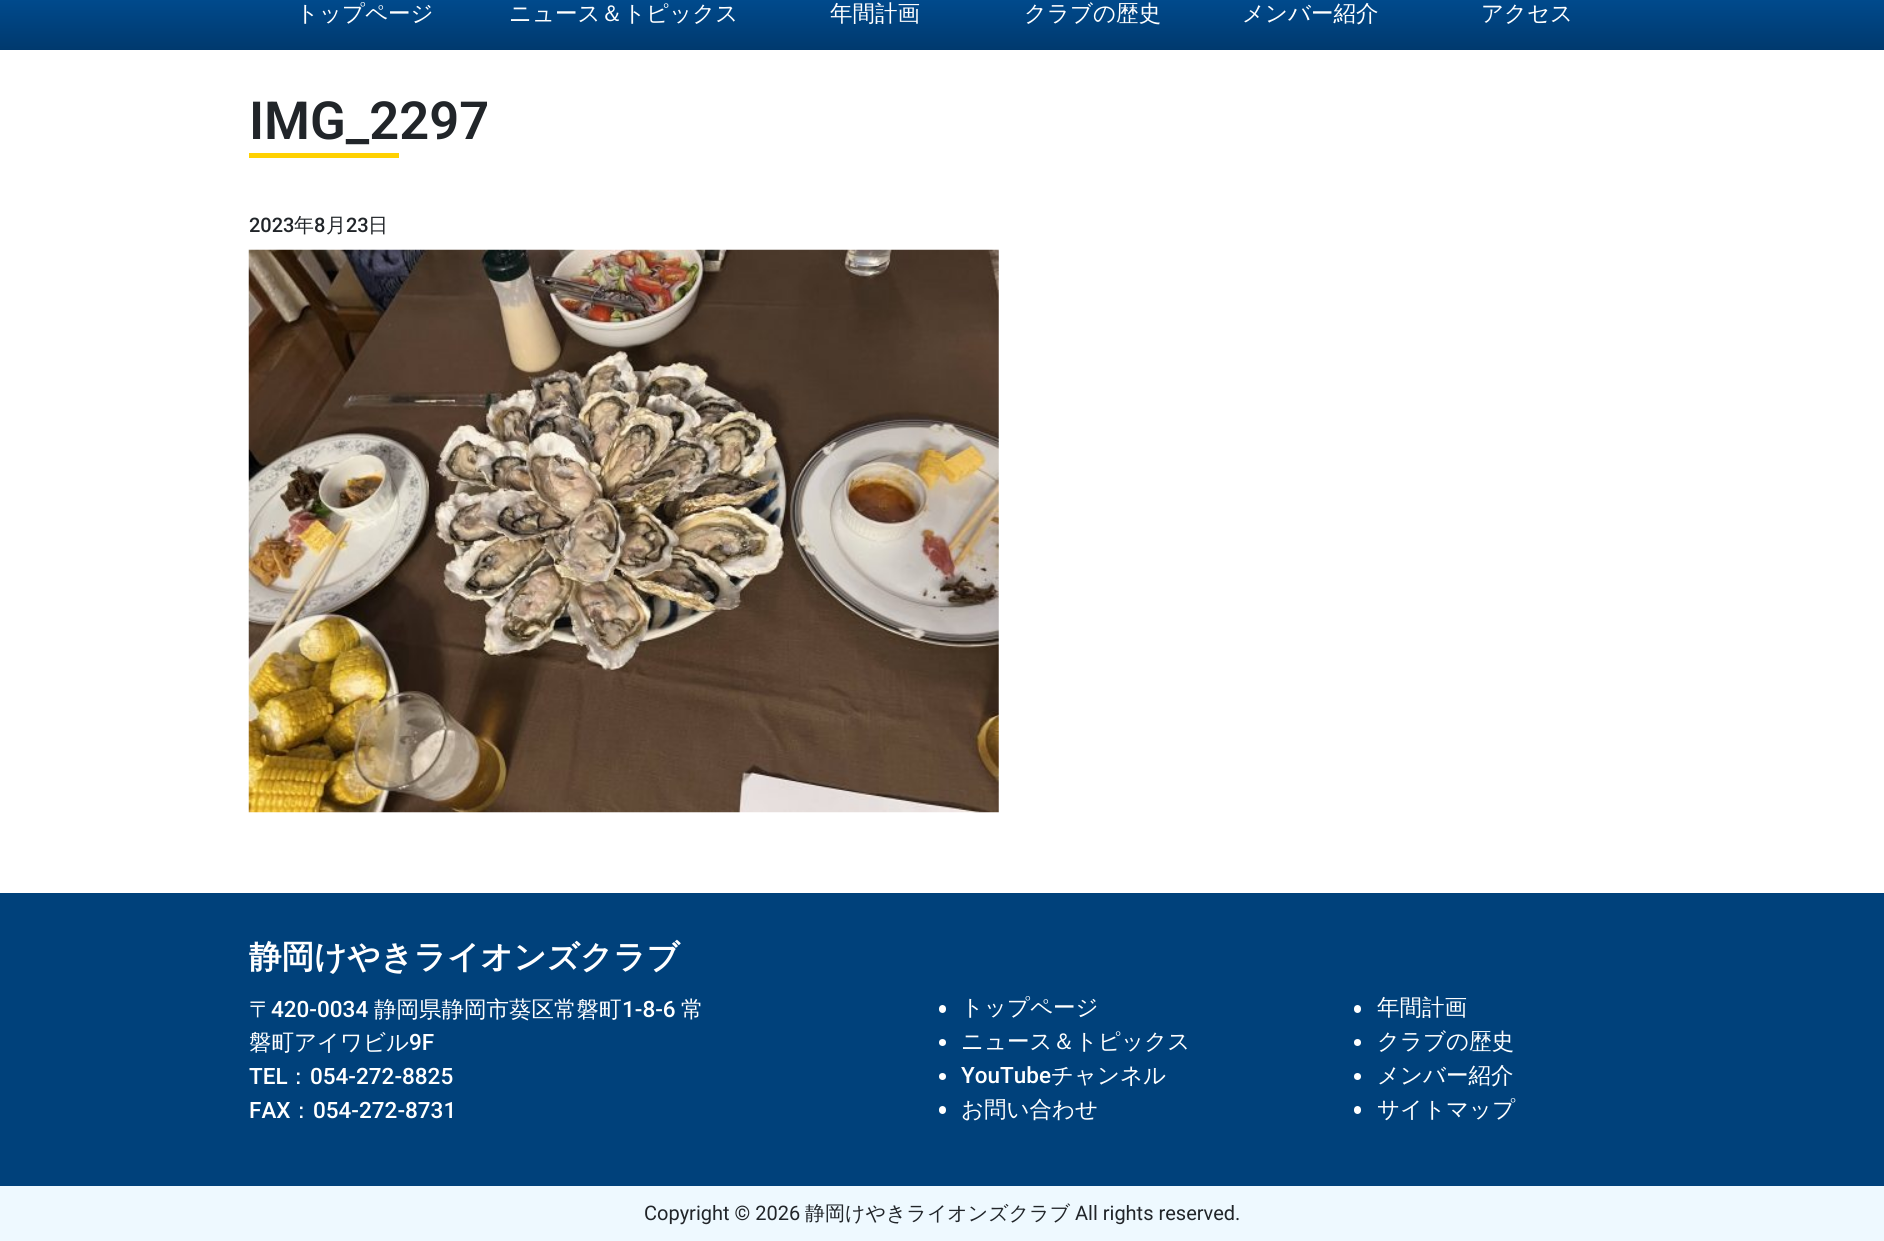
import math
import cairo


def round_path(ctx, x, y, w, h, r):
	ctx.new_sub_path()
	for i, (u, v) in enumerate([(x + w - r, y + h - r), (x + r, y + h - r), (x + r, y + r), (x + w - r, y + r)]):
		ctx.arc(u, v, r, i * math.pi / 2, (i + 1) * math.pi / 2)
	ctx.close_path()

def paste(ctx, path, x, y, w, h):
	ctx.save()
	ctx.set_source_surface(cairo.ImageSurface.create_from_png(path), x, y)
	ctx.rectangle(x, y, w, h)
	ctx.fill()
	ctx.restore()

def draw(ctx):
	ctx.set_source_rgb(1, 1, 1)
	ctx.paint()
	gradient = cairo.LinearGradient(943, -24, 943, 50)
	gradient.add_color_stop_rgba(0, 0, 0.322, 0.608, 1)
	gradient.add_color_stop_rgba(1, 0, 0.224, 0.431, 1)
	ctx.set_source(gradient)
	ctx.rectangle(0, 0, 1884, 50)
	ctx.fill()
	ctx.select_font_face('WenQuanYi Zen Hei Medium')
	ctx.set_font_size(22.5)
	ctx.set_source_rgb(1, 1, 1)
	for x, y, s in [
		(296, 21, 'トップページ'),
		(509, 21, 'ニュース＆トピックス'),
		(830, 21, '年間計画'),
		(1024, 21, 'クラブの歴史'),
		(1242, 21, 'メンバー紹介'),
		(1481, 21, 'アクセス'),
	]:
		ctx.move_to(x, y)
		ctx.show_text(s)
	ctx.select_font_face('Roboto SemiBold')
	ctx.set_font_size(52.5)
	ctx.set_source_rgb(0.129, 0.145, 0.161)
	ctx.move_to(249, 139)
	ctx.show_text('IMG_2297')
	ctx.set_source_rgb(1, 0.82, 0.004)
	ctx.rectangle(249, 153, 150, 5)
	ctx.fill()
	ctx.select_font_face('Roboto Medium')
	ctx.set_font_size(20)
	ctx.set_source_rgb(0.129, 0.145, 0.161)
	ctx.move_to(249, 232)
	ctx.show_text('2023')
	ctx.select_font_face('WenQuanYi Zen Hei Medium')
	ctx.move_to(294, 232)
	ctx.show_text('年')
	ctx.select_font_face('Roboto Medium')
	ctx.move_to(314, 232)
	ctx.show_text('8')
	ctx.select_font_face('WenQuanYi Zen Hei Medium')
	ctx.move_to(326, 232)
	ctx.show_text('月')
	ctx.select_font_face('Roboto Medium')
	ctx.move_to(346, 232)
	ctx.show_text('23')
	ctx.select_font_face('WenQuanYi Zen Hei Medium')
	ctx.move_to(368, 232)
	ctx.show_text('日')
	paste(ctx, 'media/1.png', 248, 249, 751, 564)
	ctx.set_source_rgb(0, 0.255, 0.482)
	ctx.rectangle(0, 893, 1884, 293)
	ctx.fill()
	ctx.select_font_face('WenQuanYi Zen Hei', cairo.FONT_SLANT_NORMAL, cairo.FONT_WEIGHT_BOLD)
	ctx.set_font_size(32.5)
	ctx.set_source_rgb(1, 1, 1)
	ctx.move_to(249, 968)
	ctx.show_text('静岡けやきライオンズクラブ')
	ctx.select_font_face('WenQuanYi Zen Hei Medium')
	ctx.set_font_size(22.5)
	ctx.move_to(249, 1017)
	ctx.show_text('〒')
	ctx.select_font_face('Roboto Medium')
	ctx.move_to(271, 1017)
	ctx.show_text('420-0034')
	ctx.select_font_face('WenQuanYi Zen Hei Medium')
	ctx.move_to(374, 1017)
	ctx.show_text('静岡県静岡市葵区常磐町')
	ctx.select_font_face('Roboto Medium')
	ctx.move_to(622, 1017)
	ctx.show_text('1-8-6')
	ctx.select_font_face('WenQuanYi Zen Hei Medium')
	ctx.move_to(681, 1017)
	ctx.show_text('常')
	ctx.move_to(249, 1050)
	ctx.show_text('磐町アイワビル')
	ctx.select_font_face('Roboto Medium')
	ctx.move_to(409, 1050)
	ctx.show_text('9F')
	ctx.move_to(249, 1084)
	ctx.show_text('TEL')
	ctx.select_font_face('WenQuanYi Zen Hei Medium')
	ctx.move_to(287, 1084)
	ctx.show_text('：')
	ctx.select_font_face('Roboto Medium')
	ctx.move_to(310, 1084)
	ctx.show_text('054-272-8825')
	ctx.move_to(249, 1118)
	ctx.show_text('FAX')
	ctx.select_font_face('WenQuanYi Zen Hei Medium')
	ctx.move_to(290, 1118)
	ctx.show_text('：')
	ctx.select_font_face('Roboto Medium')
	ctx.move_to(313, 1118)
	ctx.show_text('054-272-8731')
	round_path(ctx, 939, 1005, 7, 8, 3.5)
	ctx.fill()
	ctx.select_font_face('WenQuanYi Zen Hei Medium')
	ctx.move_to(961, 1015)
	ctx.show_text('トップページ')
	ctx.new_path()
	ctx.arc(942.5, 1042.5, 3.5, 0, 2 * math.pi)
	ctx.fill()
	ctx.move_to(961, 1049)
	ctx.show_text('ニュース＆トピックス')
	ctx.new_path()
	ctx.arc(942.5, 1076.5, 3.5, 0, 2 * math.pi)
	ctx.fill()
	ctx.select_font_face('Roboto Medium')
	ctx.move_to(961, 1083)
	ctx.show_text('YouTube')
	ctx.select_font_face('WenQuanYi Zen Hei Medium')
	ctx.move_to(1051, 1083)
	ctx.show_text('チャンネル')
	round_path(ctx, 939, 1106, 7, 8, 3.5)
	ctx.fill()
	ctx.move_to(961, 1117)
	ctx.show_text('お問い合わせ')
	round_path(ctx, 1354, 1005, 7, 8, 3.5)
	ctx.fill()
	ctx.move_to(1377, 1015)
	ctx.show_text('年間計画')
	ctx.new_path()
	ctx.arc(1357.5, 1042.5, 3.5, 0, 2 * math.pi)
	ctx.fill()
	ctx.move_to(1377, 1049)
	ctx.show_text('クラブの歴史')
	ctx.new_path()
	ctx.arc(1357.5, 1076.5, 3.5, 0, 2 * math.pi)
	ctx.fill()
	ctx.move_to(1377, 1083)
	ctx.show_text('メンバー紹介')
	round_path(ctx, 1354, 1106, 7, 8, 3.5)
	ctx.fill()
	ctx.move_to(1377, 1117)
	ctx.show_text('サイトマップ')
	ctx.set_source_rgb(0.933, 0.976, 1)
	ctx.rectangle(0, 1186, 1884, 55)
	ctx.fill()
	ctx.select_font_face('Roboto')
	ctx.set_font_size(20)
	ctx.set_source_rgb(0.129, 0.145, 0.161)
	ctx.move_to(644, 1220)
	ctx.show_text('Copyright © 2026')
	ctx.select_font_face('WenQuanYi Zen Hei Medium')
	ctx.move_to(805, 1220)
	ctx.show_text('静岡けやきライオンズクラブ')
	ctx.select_font_face('Roboto')
	ctx.move_to(1075, 1220)
	ctx.show_text('All rights reserved.')


surface = cairo.ImageSurface(cairo.FORMAT_RGB24, 1884, 1241)
ctx = cairo.Context(surface)
options = cairo.FontOptions()
options.set_hint_metrics(cairo.HINT_METRICS_OFF)
options.set_hint_style(cairo.HINT_STYLE_NONE)
ctx.set_font_options(options)
ctx.set_miter_limit(4)
draw(ctx)
surface.write_to_png('image.png')
